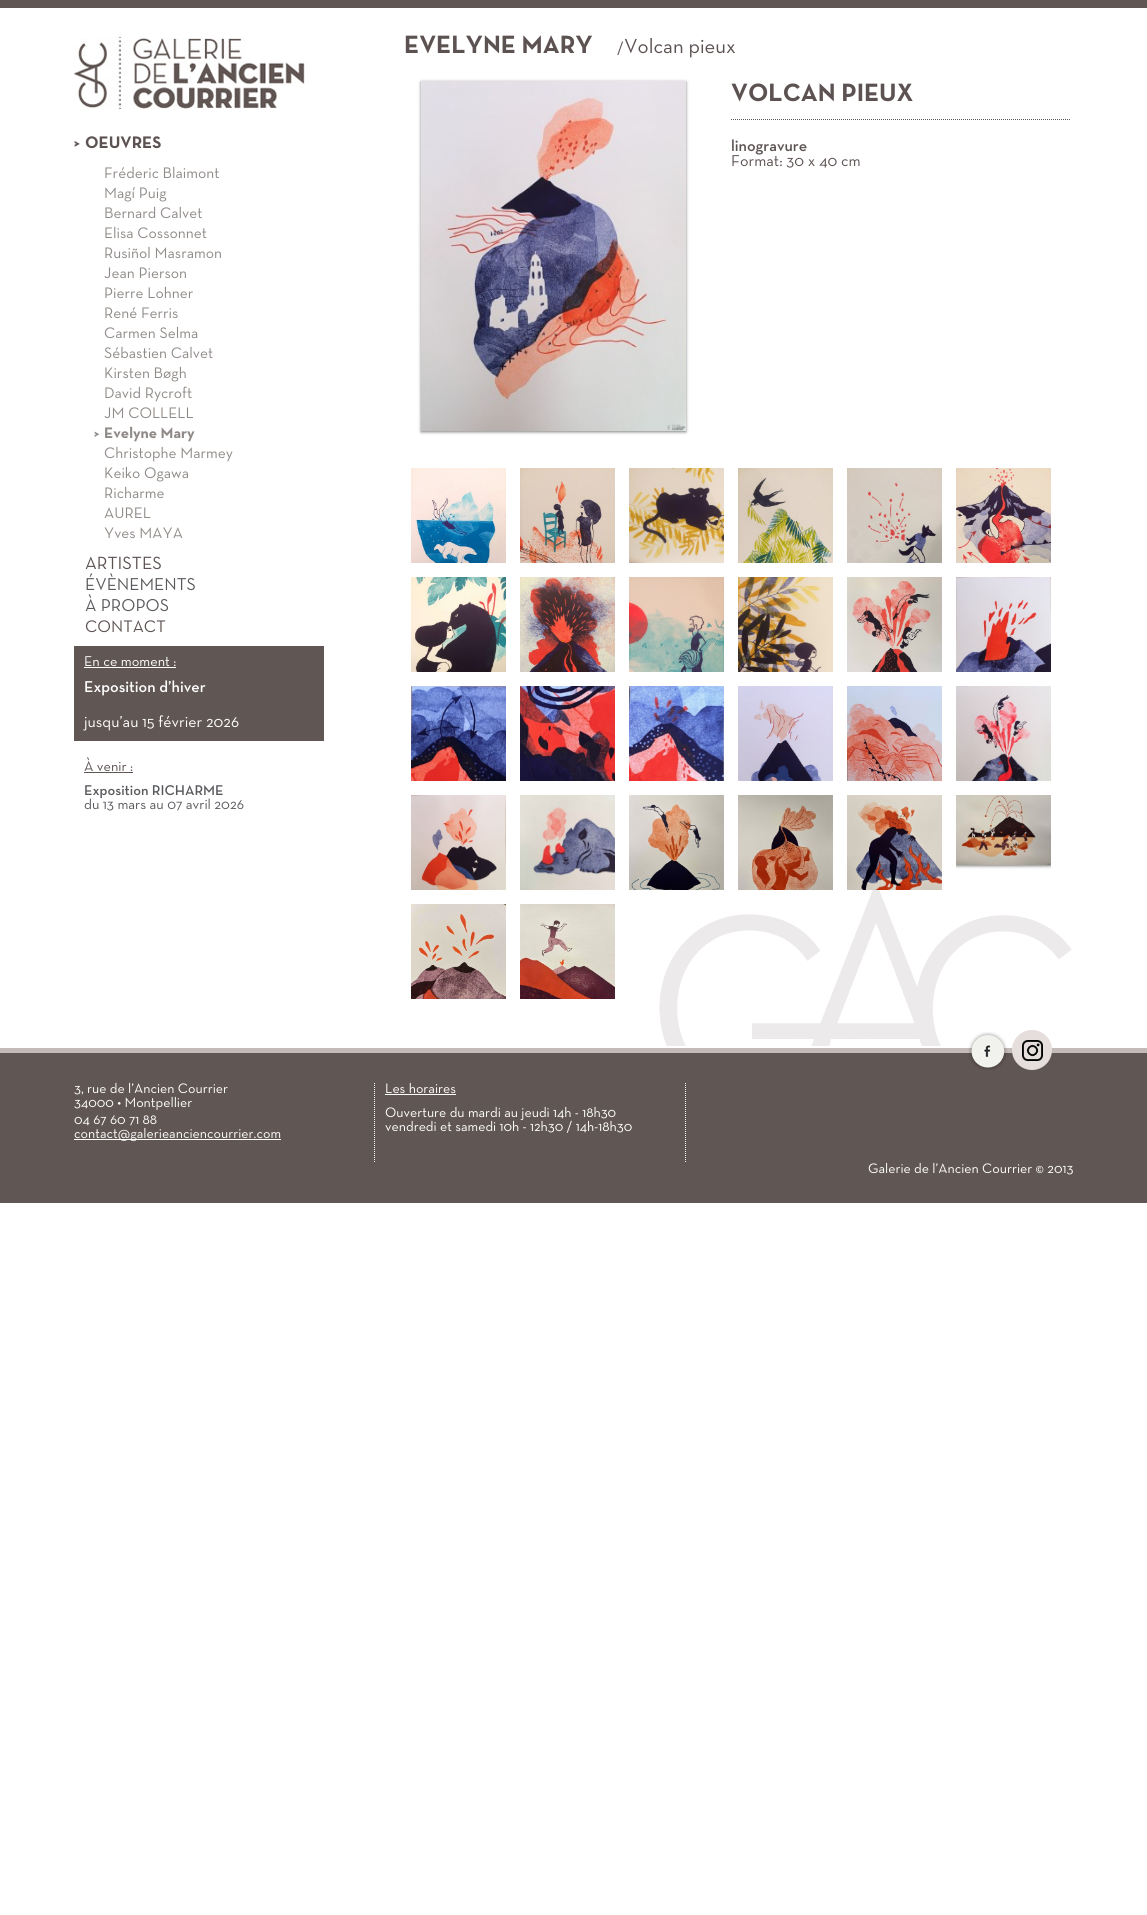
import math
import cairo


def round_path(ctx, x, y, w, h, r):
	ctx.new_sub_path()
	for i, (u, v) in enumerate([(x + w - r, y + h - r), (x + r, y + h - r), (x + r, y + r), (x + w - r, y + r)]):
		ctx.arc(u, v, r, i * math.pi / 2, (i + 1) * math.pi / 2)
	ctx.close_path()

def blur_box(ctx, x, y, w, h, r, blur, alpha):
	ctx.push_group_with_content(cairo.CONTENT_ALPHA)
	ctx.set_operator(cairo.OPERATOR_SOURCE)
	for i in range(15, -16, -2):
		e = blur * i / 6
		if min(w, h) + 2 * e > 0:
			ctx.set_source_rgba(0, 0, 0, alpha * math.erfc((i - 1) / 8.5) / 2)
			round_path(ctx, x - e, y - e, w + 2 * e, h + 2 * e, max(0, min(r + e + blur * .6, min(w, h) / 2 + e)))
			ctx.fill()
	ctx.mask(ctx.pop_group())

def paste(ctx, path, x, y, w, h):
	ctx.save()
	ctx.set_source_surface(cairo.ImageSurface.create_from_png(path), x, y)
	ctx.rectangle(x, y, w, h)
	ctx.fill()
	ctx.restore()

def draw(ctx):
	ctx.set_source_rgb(1, 1, 1)
	ctx.paint()
	ctx.set_source_rgb(0.376, 0.337, 0.325)
	ctx.rectangle(0, 0, 1147, 8)
	ctx.fill()
	paste(ctx, 'media/1.png', 659, 884, 413, 162)
	ctx.select_font_face('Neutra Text', cairo.FONT_SLANT_NORMAL, cairo.FONT_WEIGHT_BOLD)
	ctx.set_font_size(25.5)
	ctx.set_source_rgb(0.361, 0.322, 0.318)
	ctx.move_to(404, 53)
	ctx.show_text('EVELYNE MARY')
	ctx.select_font_face('Neutra Text')
	ctx.set_font_size(16)
	ctx.move_to(617, 53)
	ctx.show_text('/')
	ctx.set_font_size(20.75)
	ctx.move_to(624, 53)
	ctx.show_text('Volcan pieux')
	ctx.set_source_rgb(0, 0, 0)
	blur_box(ctx, 421, 82, 265, 350, 0, 1.5, 0.5)
	paste(ctx, 'media/2.png', 421, 81, 265, 350)
	ctx.select_font_face('Neutra Text', cairo.FONT_SLANT_NORMAL, cairo.FONT_WEIGHT_BOLD)
	ctx.set_font_size(25.5)
	ctx.set_source_rgb(0.361, 0.322, 0.318)
	ctx.move_to(731, 101)
	ctx.show_text('VOLCAN PIEUX')
	ctx.new_path()
	ctx.move_to(731, 119.5)
	ctx.line_to(1071, 119.5)
	ctx.set_source_rgb(0.376, 0.337, 0.325)
	ctx.set_line_width(1)
	ctx.set_dash([1, 1])
	ctx.stroke()
	ctx.select_font_face('Neutra Text Medium')
	ctx.set_font_size(16)
	ctx.set_source_rgb(0.361, 0.322, 0.318)
	ctx.move_to(731, 151)
	ctx.show_text('linogravure')
	ctx.select_font_face('Neutra Text')
	ctx.move_to(731, 166)
	ctx.show_text('Format: 30 x 40 cm')
	paste(ctx, 'media/3.png', 411, 468, 95, 95)
	paste(ctx, 'media/4.png', 520, 468, 95, 95)
	paste(ctx, 'media/5.png', 629, 468, 95, 95)
	paste(ctx, 'media/6.png', 738, 468, 95, 95)
	paste(ctx, 'media/7.png', 847, 468, 95, 95)
	paste(ctx, 'media/8.png', 956, 468, 95, 95)
	paste(ctx, 'media/9.png', 411, 577, 95, 95)
	paste(ctx, 'media/10.png', 520, 577, 95, 95)
	paste(ctx, 'media/11.png', 629, 577, 95, 95)
	paste(ctx, 'media/12.png', 738, 577, 95, 95)
	paste(ctx, 'media/13.png', 847, 577, 95, 95)
	paste(ctx, 'media/14.png', 956, 577, 95, 95)
	paste(ctx, 'media/15.png', 411, 686, 95, 95)
	paste(ctx, 'media/16.png', 520, 686, 95, 95)
	paste(ctx, 'media/17.png', 629, 686, 95, 95)
	paste(ctx, 'media/18.png', 738, 686, 95, 95)
	paste(ctx, 'media/19.png', 847, 686, 95, 95)
	paste(ctx, 'media/20.png', 956, 686, 95, 95)
	paste(ctx, 'media/21.png', 411, 795, 95, 95)
	paste(ctx, 'media/22.png', 520, 795, 95, 95)
	paste(ctx, 'media/23.png', 629, 795, 95, 95)
	paste(ctx, 'media/24.png', 738, 795, 95, 95)
	paste(ctx, 'media/25.png', 847, 795, 95, 95)
	ctx.save()
	ctx.rectangle(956, 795, 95, 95)
	ctx.clip()
	ctx.set_source_rgb(0, 0, 0)
	blur_box(ctx, 956, 796, 95, 70, 0, 1.5, 0.5)
	ctx.restore()
	paste(ctx, 'media/26.png', 956, 795, 95, 71)
	paste(ctx, 'media/27.png', 411, 904, 95, 95)
	paste(ctx, 'media/28.png', 520, 904, 95, 95)
	paste(ctx, 'media/29.png', 74, 36, 236, 73)
	ctx.select_font_face('Neutra Text', cairo.FONT_SLANT_NORMAL, cairo.FONT_WEIGHT_BOLD)
	ctx.set_font_size(17)
	ctx.move_to(74, 148)
	ctx.show_text('>')
	ctx.move_to(85, 148)
	ctx.show_text('OEUVRES')
	ctx.select_font_face('Neutra Text')
	ctx.set_font_size(15.5)
	ctx.set_source_rgb(0.561, 0.541, 0.529)
	for x, y, s in [
		(104, 178, 'Fréderic Blaimont'),
		(104, 198, 'Magí Puig'),
		(104, 218, 'Bernard Calvet'),
		(104, 238, 'Elisa Cossonnet'),
		(104, 258, 'Rusiñol Masramon'),
		(104, 278, 'Jean Pierson'),
		(104, 298, 'Pierre Lohner'),
		(104, 318, 'René Ferris'),
		(104, 338, 'Carmen Selma'),
		(104, 358, 'Sébastien Calvet'),
		(104, 378, 'Kirsten Bøgh'),
		(104, 398, 'David Rycroft'),
		(104, 418, 'JM COLLELL'),
	]:
		ctx.move_to(x, y)
		ctx.show_text(s)
	ctx.select_font_face('Neutra Text', cairo.FONT_SLANT_NORMAL, cairo.FONT_WEIGHT_BOLD)
	ctx.move_to(94, 438)
	ctx.show_text('>')
	ctx.move_to(104, 438)
	ctx.show_text('Evelyne Mary')
	ctx.select_font_face('Neutra Text')
	for x, y, s in [
		(104, 458, 'Christophe Marmey'),
		(104, 478, 'Keiko Ogawa'),
		(104, 498, 'Richarme'),
		(104, 518, 'AUREL'),
		(104, 538, 'Yves MAYA'),
	]:
		ctx.move_to(x, y)
		ctx.show_text(s)
	ctx.set_font_size(18)
	ctx.set_source_rgb(0.361, 0.322, 0.318)
	ctx.move_to(85, 569)
	ctx.show_text('ARTISTES')
	ctx.set_font_size(17.5)
	ctx.set_source_rgb(0.349, 0.353, 0.369)
	ctx.move_to(85, 590)
	ctx.show_text('ÉVÈNEMENTS')
	ctx.move_to(85, 611)
	ctx.show_text('À PROPOS')
	ctx.set_font_size(17)
	ctx.set_source_rgb(0.361, 0.322, 0.318)
	ctx.move_to(85, 632)
	ctx.show_text('CONTACT')
	ctx.set_source_rgb(0.376, 0.337, 0.325)
	ctx.rectangle(74, 646, 250, 95)
	ctx.fill()
	ctx.set_font_size(14.4)
	ctx.set_source_rgb(1, 1, 1)
	ctx.move_to(84, 666)
	ctx.show_text('En ce moment :')
	ctx.rectangle(84, 667, 92, 1)
	ctx.fill()
	ctx.select_font_face('Neutra Text Medium')
	ctx.set_font_size(16)
	ctx.move_to(84, 692)
	ctx.show_text('Exposition d’hiver')
	ctx.select_font_face('Neutra Text')
	ctx.move_to(84, 727)
	ctx.show_text('jusqu’au 15 février 2026')
	ctx.set_font_size(14.4)
	ctx.set_source_rgb(0.361, 0.322, 0.318)
	ctx.move_to(84, 771)
	ctx.show_text('À venir :')
	ctx.set_source_rgb(0.376, 0.337, 0.325)
	ctx.rectangle(84, 772, 49, 1)
	ctx.fill()
	ctx.select_font_face('Neutra Text Medium')
	ctx.set_source_rgb(0.349, 0.353, 0.369)
	ctx.move_to(84, 795)
	ctx.show_text('Exposition RICHARME')
	ctx.select_font_face('Neutra Text')
	ctx.move_to(84, 809)
	ctx.show_text('du 13 mars au 07 avril 2026')
	ctx.set_source_rgb(0.376, 0.337, 0.325)
	ctx.rectangle(0, 1053, 1147, 150)
	ctx.fill()
	ctx.set_source_rgb(0.769, 0.733, 0.722)
	ctx.rectangle(0, 1048, 1147, 5)
	ctx.fill()
	ctx.new_path()
	ctx.move_to(374.5, 1083)
	ctx.line_to(374.5, 1163)
	ctx.set_source_rgb(1, 1, 1)
	ctx.stroke()
	ctx.set_font_size(14)
	for x, y, s in [
		(74, 1093, '3, rue de l’Ancien Courrier'),
		(74, 1107, '34000 • Montpellier'),
		(74, 1124, '04 67 60 71 88'),
	]:
		ctx.move_to(x, y)
		ctx.show_text(s)
	ctx.rectangle(74, 1139, 207, 1)
	ctx.fill()
	ctx.move_to(74, 1138)
	ctx.show_text('contact@galerieanciencourrier.com')
	ctx.new_path()
	ctx.move_to(685.5, 1083)
	ctx.line_to(685.5, 1163)
	ctx.stroke()
	ctx.move_to(385, 1093)
	ctx.show_text('Les horaires')
	ctx.rectangle(385, 1094, 71, 1)
	ctx.fill()
	ctx.move_to(385, 1117)
	ctx.show_text('Ouverture du mardi au jeudi 14h - 18h30')
	ctx.move_to(385, 1131)
	ctx.show_text('vendredi et samedi 10h - 12h30 / 14h-18h30')
	paste(ctx, 'media/30.png', 968, 1032, 40, 38)
	ctx.set_source_rgb(0.898, 0.871, 0.863)
	ctx.arc(1032, 1050, 20, 0, 2 * math.pi)
	ctx.fill()
	paste(ctx, 'media/31.png', 1022, 1040, 21, 21)
	ctx.set_source_rgb(1, 1, 1)
	ctx.move_to(868, 1173)
	ctx.show_text('Galerie de l’Ancien Courrier © 2013')


surface = cairo.ImageSurface(cairo.FORMAT_RGB24, 1147, 1915)
ctx = cairo.Context(surface)
options = cairo.FontOptions()
options.set_hint_metrics(cairo.HINT_METRICS_OFF)
options.set_hint_style(cairo.HINT_STYLE_NONE)
ctx.set_font_options(options)
ctx.set_miter_limit(4)
draw(ctx)
surface.write_to_png('image.png')
